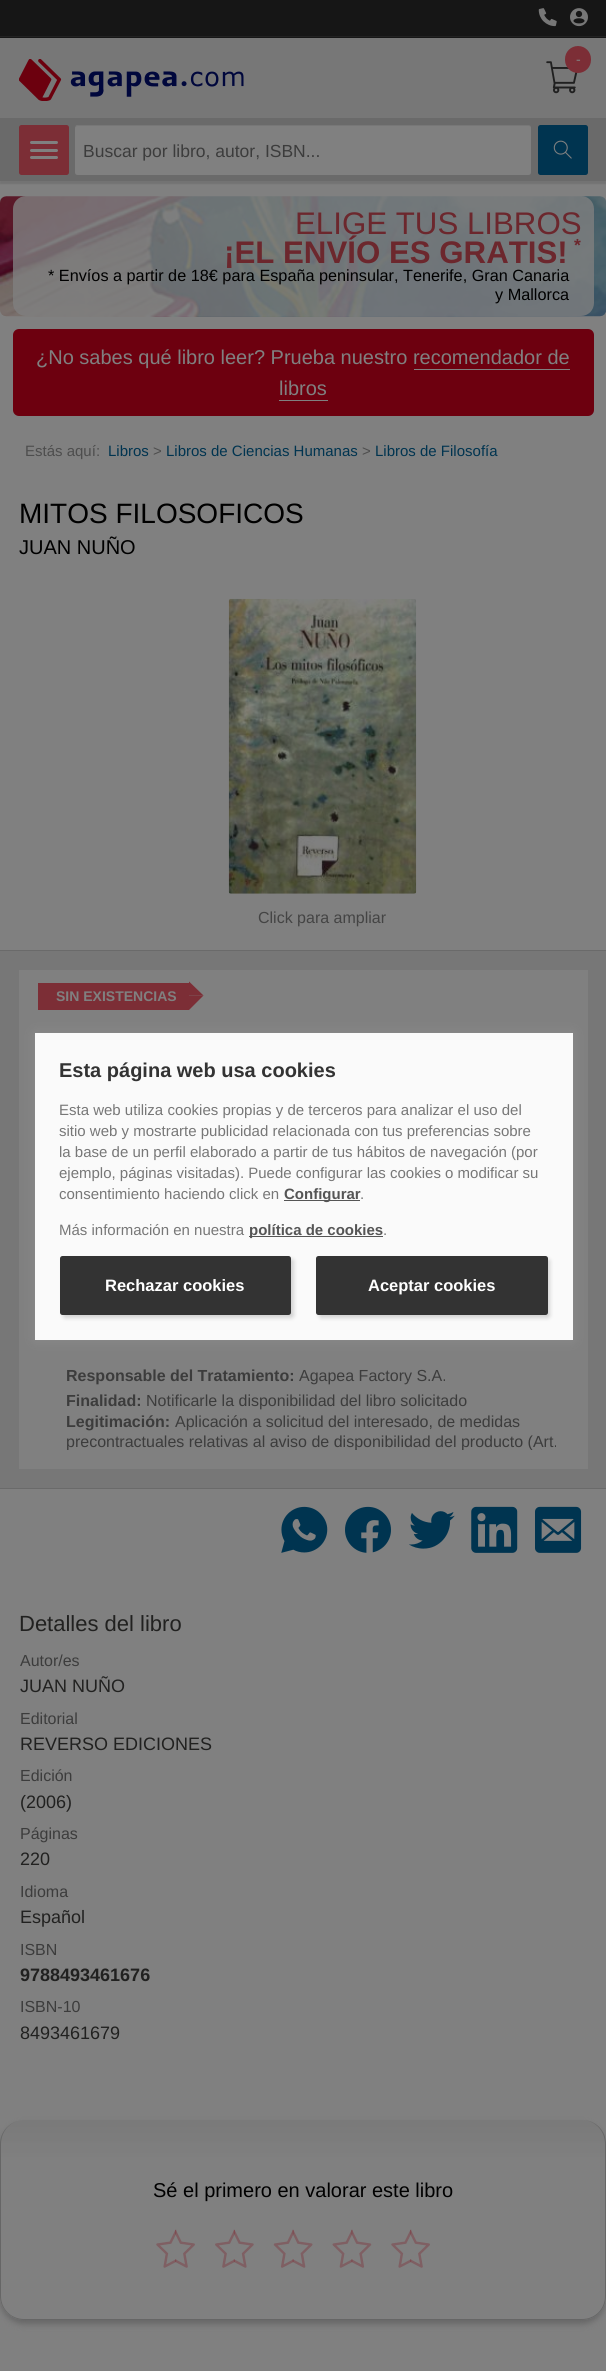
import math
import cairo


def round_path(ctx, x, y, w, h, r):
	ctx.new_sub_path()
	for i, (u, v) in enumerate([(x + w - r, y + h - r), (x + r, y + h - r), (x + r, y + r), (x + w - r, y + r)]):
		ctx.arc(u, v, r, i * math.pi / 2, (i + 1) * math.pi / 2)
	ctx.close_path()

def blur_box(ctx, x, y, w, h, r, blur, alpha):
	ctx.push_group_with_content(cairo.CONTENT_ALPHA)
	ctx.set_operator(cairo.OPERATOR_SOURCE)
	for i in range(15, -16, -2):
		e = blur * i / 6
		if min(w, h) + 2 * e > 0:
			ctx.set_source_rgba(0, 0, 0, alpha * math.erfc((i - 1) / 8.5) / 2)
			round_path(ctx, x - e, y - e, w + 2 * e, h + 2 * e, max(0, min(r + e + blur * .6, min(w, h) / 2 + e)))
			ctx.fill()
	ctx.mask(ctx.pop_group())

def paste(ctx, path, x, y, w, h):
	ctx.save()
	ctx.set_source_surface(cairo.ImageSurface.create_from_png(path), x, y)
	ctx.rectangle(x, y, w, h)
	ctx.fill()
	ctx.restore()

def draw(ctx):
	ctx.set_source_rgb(0.502, 0.502, 0.502)
	ctx.paint()
	ctx.set_source_rgb(0.086, 0.086, 0.086)
	ctx.rectangle(0, 0, 606, 38)
	ctx.fill()
	ctx.set_source_rgb(0.133, 0.133, 0.133)
	ctx.rectangle(0, 36, 606, 1)
	ctx.fill()
	paste(ctx, 'media/1.png', 538, 8, 19, 19)
	paste(ctx, 'media/2.png', 570, 8, 18, 19)
	ctx.set_source_rgb(0.467, 0.467, 0.467)
	ctx.rectangle(0, 38, 606, 80)
	ctx.fill()
	paste(ctx, 'media/3.png', 19, 59, 225, 42)
	paste(ctx, 'media/4.png', 546, 61, 32, 33)
	ctx.set_source_rgb(0.486, 0.18, 0.212)
	round_path(ctx, 565, 46, 26, 27, 13)
	ctx.fill()
	ctx.select_font_face('Liberation Sans')
	ctx.set_font_size(14)
	ctx.set_source_rgb(0.502, 0.502, 0.502)
	ctx.move_to(576, 64)
	ctx.show_text('-')
	ctx.set_source_rgb(0, 0, 0)
	blur_box(ctx, 0, 121, 606, 63, 0, 0.5, 0.1)
	ctx.set_source_rgb(0.416, 0.416, 0.416)
	ctx.rectangle(0, 118, 606, 63)
	ctx.fill()
	ctx.set_source_rgb(0.486, 0.18, 0.212)
	round_path(ctx, 19, 125, 50, 50, 2.5)
	ctx.fill()
	ctx.set_source_rgb(0.502, 0.502, 0.502)
	round_path(ctx, 30, 141, 28, 3, 1.5)
	ctx.fill()
	round_path(ctx, 30, 149, 28, 3, 1.5)
	ctx.fill()
	round_path(ctx, 30, 156, 28, 3, 1.5)
	ctx.fill()
	round_path(ctx, 75, 125, 456, 50, 2.5)
	ctx.fill()
	ctx.set_source_rgba(0, 0, 0, 0.07)
	ctx.new_path()
	ctx.move_to(78, 126)
	ctx.line_to(529, 126)
	ctx.curve_to(530, 126, 531, 127, 531, 129)
	ctx.curve_to(531, 127, 531, 125, 528, 125)
	ctx.line_to(78, 125)
	ctx.line_to(75, 126)
	ctx.line_to(75, 129)
	ctx.curve_to(75, 127, 76, 126, 78, 126)
	ctx.close_path()
	ctx.fill()
	ctx.set_font_size(17.5)
	ctx.set_source_rgb(0.235, 0.235, 0.235)
	ctx.move_to(83, 157)
	ctx.show_text('Buscar por libro, autor, ISBN...')
	ctx.set_source_rgb(0, 0.204, 0.314)
	round_path(ctx, 538, 125, 50, 50, 2.5)
	ctx.fill()
	paste(ctx, 'media/5.png', 553, 140, 19, 19)
	paste(ctx, 'media/6.png', 0, 196, 606, 121)
	ctx.set_source_rgba(0.502, 0.502, 0.502, 0.8)
	round_path(ctx, 13, 196, 581, 120, 13)
	ctx.fill()
	ctx.set_font_size(31.25)
	ctx.set_source_rgb(0.424, 0.153, 0.176)
	ctx.move_to(295, 234)
	ctx.show_text('ELIGE TUS LIBROS')
	ctx.select_font_face('Liberation Sans', cairo.FONT_SLANT_NORMAL, cairo.FONT_WEIGHT_BOLD)
	ctx.move_to(224, 263)
	ctx.show_text('¡EL ENVÍO ES GRATIS!')
	ctx.set_font_size(17.5)
	ctx.move_to(574, 251)
	ctx.show_text('*')
	ctx.select_font_face('Liberation Sans')
	ctx.set_font_size(16.25)
	ctx.set_source_rgb(0, 0, 0)
	ctx.move_to(48, 281)
	ctx.show_text('* Envíos a partir de 18€ para España peninsular, Tenerife, Gran Canaria')
	ctx.move_to(495, 300)
	ctx.show_text('y Mallorca')
	ctx.set_source_rgb(0.427, 0, 0.059)
	round_path(ctx, 13, 329, 581, 87, 6)
	ctx.fill()
	ctx.set_font_size(20)
	ctx.set_source_rgb(0.502, 0.502, 0.502)
	ctx.move_to(36, 364)
	ctx.show_text('¿No sabes qué libro leer? Prueba nuestro recomendador de')
	ctx.rectangle(414, 369, 156, 1)
	ctx.fill()
	ctx.move_to(279, 395)
	ctx.show_text('libros')
	ctx.rectangle(279, 400, 49, 1)
	ctx.fill()
	ctx.set_font_size(15)
	ctx.set_source_rgb(0.302, 0.302, 0.302)
	ctx.move_to(25, 456)
	ctx.show_text('Estás aquí:')
	ctx.set_source_rgb(0, 0.204, 0.314)
	ctx.move_to(108, 456)
	ctx.show_text('Libros')
	ctx.set_source_rgb(0.302, 0.302, 0.302)
	ctx.move_to(153, 456)
	ctx.show_text('>')
	ctx.set_source_rgb(0, 0.204, 0.314)
	ctx.move_to(166, 456)
	ctx.show_text('Libros de Ciencias Humanas')
	ctx.set_source_rgb(0.302, 0.302, 0.302)
	ctx.move_to(362, 456)
	ctx.show_text('>')
	ctx.set_source_rgb(0, 0.204, 0.314)
	ctx.move_to(375, 456)
	ctx.show_text('Libros de Filosofía')
	ctx.set_font_size(28)
	ctx.set_source_rgb(0, 0, 0)
	ctx.move_to(19, 523)
	ctx.show_text('MITOS FILOSOFICOS')
	ctx.set_font_size(20)
	ctx.move_to(19, 554)
	ctx.show_text('JUAN NUÑO')
	paste(ctx, 'media/7.png', 228, 598, 189, 296)
	ctx.set_font_size(16)
	ctx.set_source_rgb(0.267, 0.267, 0.267)
	ctx.move_to(258, 923)
	ctx.show_text('Click para ampliar')
	ctx.set_source_rgb(0.467, 0.467, 0.467)
	ctx.rectangle(0, 951, 606, 537)
	ctx.fill()
	ctx.set_source_rgb(0.416, 0.416, 0.416)
	ctx.rectangle(0, 950, 606, 1)
	ctx.rectangle(0, 1488, 606, 1)
	ctx.fill()
	ctx.set_source_rgb(0.502, 0.502, 0.502)
	ctx.rectangle(19, 970, 569, 499)
	ctx.fill()
	ctx.set_source_rgb(0.486, 0.18, 0.212)
	ctx.rectangle(38, 983, 151, 27)
	ctx.fill()
	ctx.select_font_face('Liberation Sans', cairo.FONT_SLANT_NORMAL, cairo.FONT_WEIGHT_BOLD)
	ctx.set_font_size(14)
	ctx.set_source_rgb(0.502, 0.502, 0.502)
	ctx.move_to(56, 1001)
	ctx.show_text('SIN EXISTENCIAS')
	ctx.set_source_rgb(0.486, 0.18, 0.212)
	ctx.new_path()
	ctx.move_to(189, 981.5)
	ctx.line_to(203.5, 995.5)
	ctx.line_to(189, 995.5)
	ctx.close_path()
	ctx.fill()
	ctx.new_path()
	ctx.move_to(203.5, 995.5)
	ctx.line_to(189, 1010)
	ctx.line_to(189, 995.5)
	ctx.close_path()
	ctx.fill()
	ctx.set_font_size(16)
	ctx.set_source_rgb(0.235, 0.235, 0.235)
	ctx.move_to(66, 1381)
	ctx.show_text('Responsable del Tratamiento:')
	ctx.select_font_face('Liberation Sans')
	ctx.move_to(299, 1381)
	ctx.show_text('Agapea Factory S.A.')
	ctx.select_font_face('Liberation Sans', cairo.FONT_SLANT_NORMAL, cairo.FONT_WEIGHT_BOLD)
	ctx.move_to(66, 1406)
	ctx.show_text('Finalidad:')
	ctx.select_font_face('Liberation Sans')
	ctx.move_to(146, 1406)
	ctx.show_text('Notificarle la disponibilidad del libro solicitado')
	ctx.select_font_face('Liberation Sans', cairo.FONT_SLANT_NORMAL, cairo.FONT_WEIGHT_BOLD)
	ctx.move_to(66, 1427)
	ctx.show_text('Legitimación:')
	ctx.select_font_face('Liberation Sans')
	ctx.move_to(175, 1427)
	ctx.show_text('Aplicación a solicitud del interesado, de medidas')
	ctx.save()
	ctx.rectangle(66, 1263, 503, 187)
	ctx.clip()
	ctx.move_to(66, 1447)
	ctx.show_text('precontractuales relativas al aviso de disponibilidad del producto (Art.')
	ctx.restore()
	paste(ctx, 'media/8.png', 281, 1506, 47, 47)
	paste(ctx, 'media/9.png', 345, 1506, 46, 47)
	paste(ctx, 'media/10.png', 409, 1511, 46, 38)
	paste(ctx, 'media/11.png', 471, 1506, 47, 47)
	paste(ctx, 'media/12.png', 535, 1506, 47, 47)
	ctx.set_font_size(22)
	ctx.set_source_rgb(0.129, 0.129, 0.125)
	ctx.move_to(19, 1631)
	ctx.show_text('Detalles del libro')
	ctx.set_font_size(16)
	ctx.set_source_rgb(0.235, 0.235, 0.235)
	ctx.move_to(20, 1666)
	ctx.show_text('Autor/es')
	ctx.set_font_size(18)
	ctx.set_source_rgb(0.129, 0.129, 0.125)
	ctx.move_to(20, 1692)
	ctx.show_text('JUAN NUÑO')
	ctx.set_font_size(16)
	ctx.set_source_rgb(0.235, 0.235, 0.235)
	ctx.move_to(20, 1724)
	ctx.show_text('Editorial')
	ctx.set_font_size(18)
	ctx.set_source_rgb(0.129, 0.129, 0.125)
	ctx.move_to(20, 1750)
	ctx.show_text('REVERSO EDICIONES')
	ctx.set_font_size(16)
	ctx.set_source_rgb(0.235, 0.235, 0.235)
	ctx.move_to(20, 1781)
	ctx.show_text('Edición')
	ctx.set_font_size(18)
	ctx.set_source_rgb(0.129, 0.129, 0.125)
	ctx.move_to(20, 1808)
	ctx.show_text('(2006)')
	ctx.set_font_size(16)
	ctx.set_source_rgb(0.235, 0.235, 0.235)
	ctx.move_to(20, 1839)
	ctx.show_text('Páginas')
	ctx.set_font_size(18)
	ctx.set_source_rgb(0.129, 0.129, 0.125)
	ctx.move_to(20, 1865)
	ctx.show_text('220')
	ctx.set_font_size(16)
	ctx.set_source_rgb(0.235, 0.235, 0.235)
	ctx.move_to(20, 1897)
	ctx.show_text('Idioma')
	ctx.set_font_size(18)
	ctx.set_source_rgb(0.129, 0.129, 0.125)
	ctx.move_to(20, 1923)
	ctx.show_text('Español')
	ctx.set_font_size(16)
	ctx.set_source_rgb(0.235, 0.235, 0.235)
	ctx.move_to(20, 1955)
	ctx.show_text('ISBN')
	ctx.select_font_face('Liberation Sans', cairo.FONT_SLANT_NORMAL, cairo.FONT_WEIGHT_BOLD)
	ctx.set_font_size(18)
	ctx.set_source_rgb(0.129, 0.129, 0.125)
	ctx.move_to(20, 1981)
	ctx.show_text('9788493461676')
	ctx.select_font_face('Liberation Sans')
	ctx.set_font_size(16)
	ctx.set_source_rgb(0.235, 0.235, 0.235)
	ctx.move_to(20, 2012)
	ctx.show_text('ISBN-10')
	ctx.set_font_size(18)
	ctx.set_source_rgb(0.129, 0.129, 0.125)
	ctx.move_to(20, 2039)
	ctx.show_text('8493461679')
	ctx.set_source_rgb(0.4, 0.4, 0.4)
	blur_box(ctx, 0, 2124, 606, 200, 24, 3, 1)
	paste(ctx, 'media/13.png', 0, 2120, 606, 200)
	ctx.set_source_rgb(0.4, 0.4, 0.4)
	ctx.set_fill_rule(cairo.FILL_RULE_EVEN_ODD)
	ctx.new_path()
	ctx.move_to(24, 2120)
	ctx.line_to(582, 2120)
	ctx.curve_to(596, 2120, 606, 2131, 606, 2144)
	ctx.line_to(606, 2296)
	ctx.curve_to(606, 2309, 596, 2320, 582, 2320)
	ctx.line_to(24, 2320)
	ctx.curve_to(11, 2320, 0, 2309, 0, 2296)
	ctx.line_to(0, 2144)
	ctx.curve_to(0, 2131, 11, 2120, 24, 2120)
	ctx.close_path()
	ctx.move_to(24, 2120)
	ctx.line_to(582, 2120)
	ctx.curve_to(595, 2120, 605, 2131, 605, 2144)
	ctx.line_to(605, 2296)
	ctx.curve_to(605, 2309, 595, 2319, 582, 2319)
	ctx.line_to(24, 2319)
	ctx.curve_to(11, 2319, 1, 2309, 1, 2296)
	ctx.line_to(1, 2144)
	ctx.curve_to(1, 2131, 11, 2120, 24, 2120)
	ctx.close_path()
	ctx.fill()
	ctx.set_font_size(20)
	ctx.set_source_rgb(0, 0, 0)
	ctx.move_to(153, 2197)
	ctx.show_text('Sé el primero en valorar este libro')
	paste(ctx, 'media/14.png', 156, 2229, 21, 39)
	paste(ctx, 'media/15.png', 175, 2229, 20, 39)
	paste(ctx, 'media/16.png', 215, 2229, 20, 39)
	paste(ctx, 'media/17.png', 233, 2229, 21, 39)
	paste(ctx, 'media/18.png', 273, 2229, 21, 39)
	paste(ctx, 'media/19.png', 292, 2229, 21, 39)
	paste(ctx, 'media/20.png', 332, 2229, 21, 39)
	paste(ctx, 'media/21.png', 351, 2229, 21, 39)
	paste(ctx, 'media/14.png', 391, 2229, 21, 39)
	paste(ctx, 'media/15.png', 410, 2229, 20, 39)
	ctx.set_source_rgb(0.6, 0.6, 0.6)
	blur_box(ctx, 35, 1033, 538, 307, 0, 6, 0.5)
	ctx.set_source_rgb(0.98, 0.98, 0.98)
	ctx.rectangle(35, 1033, 538, 307)
	ctx.fill()
	ctx.select_font_face('Liberation Sans', cairo.FONT_SLANT_NORMAL, cairo.FONT_WEIGHT_BOLD)
	ctx.set_source_rgb(0.2, 0.2, 0.2)
	ctx.move_to(59, 1077)
	ctx.show_text('Esta página web usa cookies')
	ctx.select_font_face('Liberation Sans')
	ctx.set_font_size(15)
	ctx.set_source_rgb(0.467, 0.467, 0.467)
	for x, y, s in [
		(59, 1115, 'Esta web utiliza cookies propias y de terceros para analizar el uso del'),
		(59, 1136, 'sitio web y mostrarte publicidad relacionada con tus preferencias sobre'),
		(59, 1157, 'la base de un perfil elaborado a partir de tus hábitos de navegación (por'),
		(59, 1178, 'ejemplo, páginas visitadas). Puede configurar las cookies o modificar su'),
		(59, 1199, 'consentimiento haciendo click en'),
	]:
		ctx.move_to(x, y)
		ctx.show_text(s)
	ctx.set_source_rgb(0.333, 0.333, 0.333)
	ctx.rectangle(284, 1200, 76, 1)
	ctx.fill()
	ctx.select_font_face('Liberation Sans', cairo.FONT_SLANT_NORMAL, cairo.FONT_WEIGHT_BOLD)
	ctx.move_to(284, 1199)
	ctx.show_text('Configurar')
	ctx.select_font_face('Liberation Sans')
	ctx.set_source_rgb(0.467, 0.467, 0.467)
	ctx.move_to(360, 1199)
	ctx.show_text('.')
	ctx.move_to(59, 1235)
	ctx.show_text('Más información en nuestra')
	ctx.set_source_rgb(0.333, 0.333, 0.333)
	ctx.rectangle(249, 1236, 134, 1)
	ctx.fill()
	ctx.select_font_face('Liberation Sans', cairo.FONT_SLANT_NORMAL, cairo.FONT_WEIGHT_BOLD)
	ctx.move_to(249, 1235)
	ctx.show_text('política de cookies')
	ctx.select_font_face('Liberation Sans')
	ctx.set_source_rgb(0.467, 0.467, 0.467)
	ctx.move_to(383, 1235)
	ctx.show_text('.')
	ctx.set_source_rgb(0.467, 0.467, 0.467)
	blur_box(ctx, 63, 1259, 231, 59, 2.5, 2, 0.3)
	ctx.set_source_rgb(0.2, 0.2, 0.2)
	round_path(ctx, 61.5, 1257.5, 228, 56, 1)
	ctx.fill_preserve()
	ctx.set_line_width(3)
	ctx.stroke()
	ctx.select_font_face('Liberation Sans', cairo.FONT_SLANT_NORMAL, cairo.FONT_WEIGHT_BOLD)
	ctx.set_font_size(16.5)
	ctx.set_source_rgb(1, 1, 1)
	ctx.move_to(105, 1291)
	ctx.show_text('Rechazar cookies')
	ctx.set_source_rgb(0.467, 0.467, 0.467)
	blur_box(ctx, 319, 1259, 231, 59, 2.5, 2, 0.3)
	ctx.set_source_rgb(0.2, 0.2, 0.2)
	round_path(ctx, 317.5, 1257.5, 229, 56, 1)
	ctx.fill_preserve()
	ctx.stroke()
	ctx.set_source_rgb(1, 1, 1)
	ctx.move_to(368, 1291)
	ctx.show_text('Aceptar cookies')


surface = cairo.ImageSurface(cairo.FORMAT_RGB24, 606, 2371)
ctx = cairo.Context(surface)
options = cairo.FontOptions()
options.set_hint_metrics(cairo.HINT_METRICS_OFF)
options.set_hint_style(cairo.HINT_STYLE_NONE)
ctx.set_font_options(options)
ctx.set_miter_limit(4)
draw(ctx)
surface.write_to_png('image.png')
